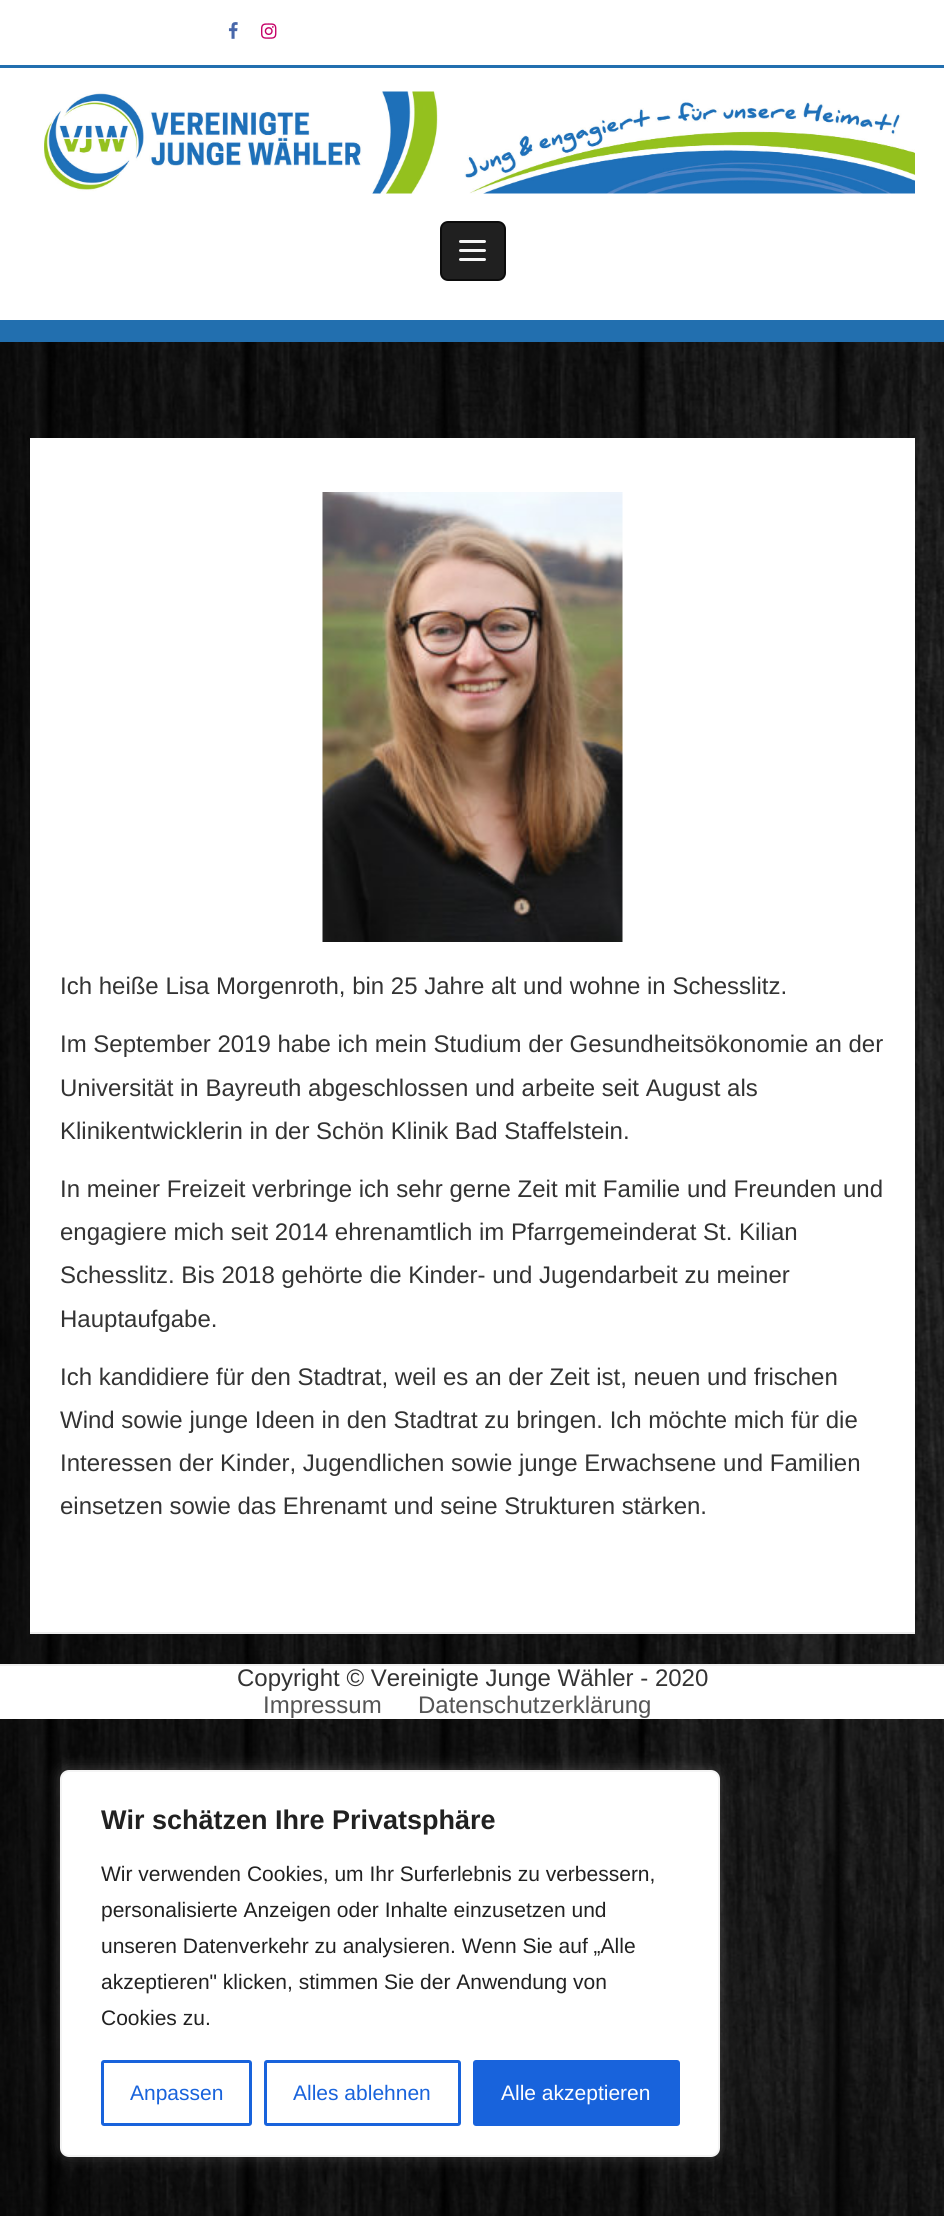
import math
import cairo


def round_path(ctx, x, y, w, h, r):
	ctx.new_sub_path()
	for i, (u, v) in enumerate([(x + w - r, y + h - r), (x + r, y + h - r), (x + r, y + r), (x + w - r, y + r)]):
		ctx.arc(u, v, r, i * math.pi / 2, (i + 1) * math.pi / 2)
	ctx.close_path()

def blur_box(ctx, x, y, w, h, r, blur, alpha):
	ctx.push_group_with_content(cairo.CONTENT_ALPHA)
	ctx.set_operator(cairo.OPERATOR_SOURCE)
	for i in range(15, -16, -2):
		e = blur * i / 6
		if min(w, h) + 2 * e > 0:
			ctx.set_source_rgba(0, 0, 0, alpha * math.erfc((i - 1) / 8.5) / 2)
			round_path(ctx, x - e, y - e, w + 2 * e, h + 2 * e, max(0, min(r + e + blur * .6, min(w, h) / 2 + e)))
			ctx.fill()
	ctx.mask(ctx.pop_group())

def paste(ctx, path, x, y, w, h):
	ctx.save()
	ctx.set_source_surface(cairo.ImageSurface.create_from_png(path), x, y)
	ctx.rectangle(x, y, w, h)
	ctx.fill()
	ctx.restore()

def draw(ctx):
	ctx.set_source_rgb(1, 1, 1)
	ctx.paint()
	paste(ctx, 'media/1.png', 0, 342, 944, 1874)
	ctx.set_source_rgb(0.133, 0.435, 0.686)
	ctx.rectangle(0, 65, 944, 3)
	ctx.fill()
	paste(ctx, 'media/2.png', 228, 22, 10, 17)
	paste(ctx, 'media/3.png', 261, 23, 16, 16)
	ctx.rectangle(0, 320, 944, 22)
	ctx.fill()
	paste(ctx, 'media/4.png', 44, 91, 871, 103)
	ctx.set_source_rgb(0.125, 0.125, 0.125)
	round_path(ctx, 441, 222, 64, 58, 7)
	ctx.fill_preserve()
	ctx.set_source_rgb(0.047, 0.047, 0.047)
	ctx.stroke()
	ctx.set_source_rgb(0.961, 0.961, 0.961)
	round_path(ctx, 459, 240, 27, 3, 1.5)
	ctx.fill()
	round_path(ctx, 459, 249, 27, 3, 1.5)
	ctx.fill()
	round_path(ctx, 459, 258, 27, 3, 1.5)
	ctx.fill()
	ctx.set_source_rgb(0.933, 0.933, 0.933)
	ctx.rectangle(30, 1632, 885, 2)
	ctx.fill()
	ctx.set_source_rgb(1, 1, 1)
	ctx.rectangle(30, 438, 885, 1194)
	ctx.fill()
	paste(ctx, 'media/5.png', 322, 492, 301, 450)
	ctx.select_font_face('Liberation Sans')
	ctx.set_font_size(24)
	ctx.set_source_rgb(0.2, 0.2, 0.2)
	for x, y, s in [
		(60, 994, 'Ich heiße Lisa Morgenroth, bin 25 Jahre alt und wohne in Schesslitz.'),
		(60, 1052, 'Im September 2019 habe ich mein Studium der Gesundheitsökonomie an der'),
		(60, 1096, 'Universität in Bayreuth abgeschlossen und arbeite seit August als'),
		(60, 1139, 'Klinikentwicklerin in der Schön Klinik Bad Staffelstein.'),
		(60, 1197, 'In meiner Freizeit verbringe ich sehr gerne Zeit mit Familie und Freunden und'),
		(60, 1240, 'engagiere mich seit 2014 ehrenamtlich im Pfarrgemeinderat St. Kilian'),
		(60, 1283, 'Schesslitz. Bis 2018 gehörte die Kinder- und Jugendarbeit zu meiner'),
		(60, 1327, 'Hauptaufgabe.'),
		(60, 1385, 'Ich kandidiere für den Stadtrat, weil es an der Zeit ist, neuen und frischen'),
		(60, 1428, 'Wind sowie junge Ideen in den Stadtrat zu bringen. Ich möchte mich für die'),
		(60, 1471, 'Interessen der Kinder, Jugendlichen sowie junge Erwachsene und Familien'),
		(60, 1514, 'einsetzen sowie das Ehrenamt und seine Strukturen stärken.'),
	]:
		ctx.move_to(x, y)
		ctx.show_text(s)
	ctx.set_source_rgb(1, 1, 1)
	ctx.rectangle(0, 1666, 944, 53)
	ctx.fill()
	ctx.set_source_rgb(0.933, 0.933, 0.933)
	ctx.rectangle(0, 1664, 944, 2)
	ctx.fill()
	ctx.set_source_rgb(0.2, 0.2, 0.2)
	ctx.move_to(237, 1686)
	ctx.show_text('Copyright © Vereinigte Junge Wähler - 2020')
	ctx.set_source_rgb(0.333, 0.333, 0.333)
	ctx.move_to(263, 1713)
	ctx.show_text('Impressum')
	ctx.move_to(418, 1713)
	ctx.show_text('Datenschutzerklärung')
	ctx.set_source_rgb(0.675, 0.671, 0.671)
	blur_box(ctx, 60, 1769, 660, 387, 9, 7.5, 0.3)
	ctx.set_source_rgb(1, 1, 1)
	round_path(ctx, 61, 1771, 658, 385, 8)
	ctx.fill_preserve()
	ctx.set_source_rgb(0.957, 0.957, 0.957)
	ctx.stroke()
	ctx.select_font_face('Liberation Sans', cairo.FONT_SLANT_NORMAL, cairo.FONT_WEIGHT_BOLD)
	ctx.set_font_size(27)
	ctx.set_source_rgb(0.129, 0.129, 0.129)
	ctx.move_to(101, 1829)
	ctx.show_text('Wir schätzen Ihre Privatsphäre')
	ctx.select_font_face('Liberation Sans')
	ctx.set_font_size(21)
	for x, y, s in [
		(101, 1881, 'Wir verwenden Cookies, um Ihr Surferlebnis zu verbessern,'),
		(101, 1917, 'personalisierte Anzeigen oder Inhalte einzusetzen und'),
		(101, 1953, 'unseren Datenverkehr zu analysieren. Wenn Sie auf „Alle'),
		(101, 1989, 'akzeptieren" klicken, stimmen Sie der Anwendung von'),
		(101, 2025, 'Cookies zu.'),
	]:
		ctx.move_to(x, y)
		ctx.show_text(s)
	round_path(ctx, 102.5, 2061.5, 148, 63, 1.5)
	ctx.set_source_rgb(0.094, 0.388, 0.863)
	ctx.set_line_width(3)
	ctx.stroke()
	ctx.move_to(130, 2100)
	ctx.show_text('Anpassen')
	round_path(ctx, 265.5, 2061.5, 194, 63, 1.5)
	ctx.stroke()
	ctx.move_to(293, 2100)
	ctx.show_text('Alles ablehnen')
	round_path(ctx, 474.5, 2061.5, 204, 63, 1.5)
	ctx.fill_preserve()
	ctx.stroke()
	ctx.set_source_rgb(1, 1, 1)
	ctx.move_to(501, 2100)
	ctx.show_text('Alle akzeptieren')


surface = cairo.ImageSurface(cairo.FORMAT_RGB24, 944, 2216)
ctx = cairo.Context(surface)
options = cairo.FontOptions()
options.set_hint_metrics(cairo.HINT_METRICS_OFF)
options.set_hint_style(cairo.HINT_STYLE_NONE)
ctx.set_font_options(options)
ctx.set_miter_limit(4)
draw(ctx)
surface.write_to_png('image.png')
